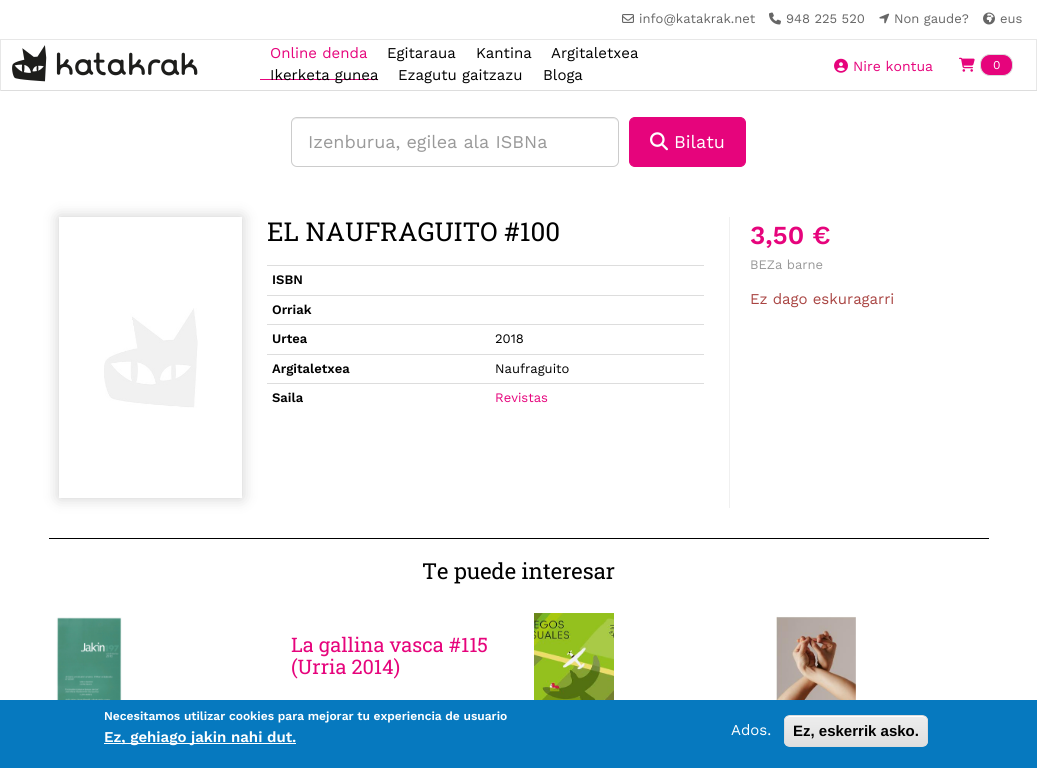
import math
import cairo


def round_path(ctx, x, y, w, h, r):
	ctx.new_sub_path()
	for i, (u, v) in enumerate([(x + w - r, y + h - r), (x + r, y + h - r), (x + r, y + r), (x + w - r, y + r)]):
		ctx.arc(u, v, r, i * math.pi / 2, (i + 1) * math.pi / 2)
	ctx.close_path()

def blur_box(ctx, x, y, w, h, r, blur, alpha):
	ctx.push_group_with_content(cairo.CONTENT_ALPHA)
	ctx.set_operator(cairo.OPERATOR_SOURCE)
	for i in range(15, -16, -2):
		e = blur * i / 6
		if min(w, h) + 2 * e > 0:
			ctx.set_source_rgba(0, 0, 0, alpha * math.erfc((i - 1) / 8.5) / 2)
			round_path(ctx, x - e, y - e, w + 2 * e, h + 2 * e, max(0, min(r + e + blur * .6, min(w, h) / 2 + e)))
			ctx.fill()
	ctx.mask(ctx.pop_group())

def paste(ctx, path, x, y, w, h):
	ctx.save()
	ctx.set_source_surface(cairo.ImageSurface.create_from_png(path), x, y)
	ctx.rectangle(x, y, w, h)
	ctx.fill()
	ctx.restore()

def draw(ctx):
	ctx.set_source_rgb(1, 1, 1)
	ctx.paint()
	paste(ctx, 'media/1.png', 622, 14, 12, 9)
	ctx.select_font_face('Work Sans')
	ctx.set_font_size(13)
	ctx.set_source_rgb(0.4, 0.4, 0.4)
	ctx.move_to(639, 23)
	ctx.show_text('info@katakrak.net')
	paste(ctx, 'media/2.png', 769, 12, 12, 13)
	ctx.move_to(786, 23)
	ctx.show_text('948 225 520')
	paste(ctx, 'media/3.png', 879, 13, 11, 11)
	ctx.move_to(894, 23)
	ctx.show_text('Non gaude?')
	paste(ctx, 'media/4.png', 983, 12, 12, 13)
	ctx.move_to(1000, 23)
	ctx.show_text('eus')
	ctx.set_source_rgb(0.906, 0.906, 0.906)
	ctx.rectangle(0, 39, 1037, 1)
	ctx.rectangle(1036, 39, 1, 52)
	ctx.fill()
	ctx.set_source_rgb(0.867, 0.867, 0.867)
	ctx.rectangle(0, 90, 1037, 1)
	ctx.fill()
	ctx.set_source_rgb(0.906, 0.906, 0.906)
	ctx.rectangle(0, 39, 1, 52)
	ctx.fill()
	paste(ctx, 'media/5.png', 12, 45, 186, 37)
	ctx.set_font_size(15)
	ctx.set_source_rgb(0.902, 0.016, 0.486)
	ctx.move_to(270, 58)
	ctx.show_text('Online denda')
	ctx.rectangle(260, 79, 117, 1)
	ctx.fill()
	ctx.set_source_rgb(0, 0, 0)
	for x, y, s in [
		(387, 58, 'Egitaraua'),
		(476, 58, 'Kantina'),
		(551, 58, 'Argitaletxea'),
		(270, 80, 'Ikerketa gunea'),
		(398, 80, 'Ezagutu gaitzazu'),
		(543, 80, 'Bloga'),
	]:
		ctx.move_to(x, y)
		ctx.show_text(s)
	paste(ctx, 'media/6.png', 834, 58, 14, 15)
	ctx.set_font_size(14)
	ctx.set_source_rgb(0.902, 0.016, 0.486)
	ctx.move_to(853, 71)
	ctx.show_text('Nire kontua')
	paste(ctx, 'media/7.png', 959, 57, 16, 15)
	round_path(ctx, 980.5, 54.5, 32, 21, 9.5)
	ctx.fill_preserve()
	ctx.set_source_rgb(0.867, 0.867, 0.867)
	ctx.set_line_width(1)
	ctx.stroke()
	ctx.set_font_size(12)
	ctx.set_source_rgb(1, 1, 1)
	ctx.move_to(993, 69)
	ctx.show_text('0')
	ctx.set_source_rgb(0.925, 0.925, 0.925)
	ctx.new_path()
	ctx.move_to(297, 119)
	ctx.line_to(613, 119)
	ctx.curve_to(616, 119, 618, 121, 618, 124)
	ctx.curve_to(618, 121, 616, 118, 613, 118)
	ctx.line_to(297, 118)
	ctx.curve_to(294, 118, 292, 121, 292, 124)
	ctx.curve_to(292, 121, 294, 119, 297, 119)
	ctx.close_path()
	ctx.fill()
	round_path(ctx, 291.5, 117.5, 327, 49, 5.5)
	ctx.set_source_rgb(0.8, 0.8, 0.8)
	ctx.stroke()
	ctx.set_font_size(18)
	ctx.set_source_rgb(0.6, 0.6, 0.6)
	ctx.move_to(308, 148)
	ctx.show_text('Izenburua, egilea ala ISBNa')
	ctx.set_source_rgb(0.902, 0.016, 0.486)
	round_path(ctx, 629.5, 117.5, 116, 49, 5.5)
	ctx.fill_preserve()
	ctx.stroke()
	paste(ctx, 'media/8.png', 650, 132, 18, 19)
	ctx.set_source_rgb(1, 1, 1)
	ctx.move_to(674, 148)
	ctx.show_text('Bilatu')
	ctx.save()
	ctx.set_fill_rule(cairo.FILL_RULE_EVEN_ODD)
	ctx.new_path()
	ctx.move_to(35, 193)
	ctx.line_to(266, 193)
	ctx.line_to(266, 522)
	ctx.line_to(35, 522)
	ctx.close_path()
	ctx.move_to(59, 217)
	ctx.line_to(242, 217)
	ctx.line_to(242, 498)
	ctx.line_to(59, 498)
	ctx.close_path()
	ctx.clip()
	ctx.set_source_rgb(0, 0, 0)
	blur_box(ctx, 59, 217, 183, 281, 0, 7.5, 0.2)
	ctx.restore()
	paste(ctx, 'media/9.png', 104, 308, 94, 100)
	ctx.select_font_face('Roboto Slab')
	ctx.set_font_size(26)
	ctx.set_source_rgb(0, 0, 0)
	ctx.move_to(267, 241)
	ctx.show_text('EL NAUFRAGUITO #100')
	ctx.set_source_rgb(0.867, 0.867, 0.867)
	ctx.rectangle(267, 265, 437, 1)
	ctx.fill()
	ctx.select_font_face('Work Sans SemiBold')
	ctx.set_font_size(13)
	ctx.set_source_rgb(0, 0, 0)
	ctx.move_to(272, 284)
	ctx.show_text('ISBN')
	ctx.set_source_rgb(0.867, 0.867, 0.867)
	ctx.rectangle(267, 295, 437, 1)
	ctx.fill()
	ctx.set_source_rgb(0, 0, 0)
	ctx.move_to(272, 314)
	ctx.show_text('Orriak')
	ctx.move_to(272, 343)
	ctx.show_text('Urtea')
	ctx.set_source_rgb(0.867, 0.867, 0.867)
	ctx.rectangle(267, 324, 437, 1)
	ctx.fill()
	ctx.select_font_face('Work Sans')
	ctx.set_source_rgb(0, 0, 0)
	ctx.move_to(495, 343)
	ctx.show_text('2018')
	ctx.select_font_face('Work Sans SemiBold')
	ctx.move_to(272, 373)
	ctx.show_text('Argitaletxea')
	ctx.set_source_rgb(0.867, 0.867, 0.867)
	ctx.rectangle(267, 354, 437, 1)
	ctx.fill()
	ctx.select_font_face('Work Sans')
	ctx.set_source_rgb(0, 0, 0)
	ctx.move_to(495, 373)
	ctx.show_text('Naufraguito')
	ctx.select_font_face('Work Sans SemiBold')
	ctx.move_to(272, 402)
	ctx.show_text('Saila')
	ctx.set_source_rgb(0.867, 0.867, 0.867)
	ctx.rectangle(267, 383, 437, 1)
	ctx.fill()
	ctx.select_font_face('Work Sans')
	ctx.set_source_rgb(0.902, 0.016, 0.486)
	ctx.move_to(495, 402)
	ctx.show_text('Revistas')
	ctx.set_source_rgb(0.941, 0.941, 0.941)
	ctx.rectangle(729, 217, 1, 291)
	ctx.fill()
	ctx.select_font_face('Work Sans SemiBold')
	ctx.set_font_size(26)
	ctx.set_source_rgb(0.902, 0.016, 0.486)
	ctx.move_to(750, 244)
	ctx.show_text('3,50 €')
	ctx.select_font_face('Work Sans')
	ctx.set_font_size(13)
	ctx.set_source_rgb(0.6, 0.6, 0.6)
	ctx.move_to(750, 269)
	ctx.show_text('BEZa barne')
	ctx.set_font_size(15)
	ctx.set_source_rgb(0.663, 0.267, 0.259)
	ctx.move_to(750, 304)
	ctx.show_text('Ez dago eskuragarri')
	ctx.set_source_rgb(0, 0, 0)
	ctx.rectangle(49, 538, 940, 1)
	ctx.fill()
	ctx.select_font_face('Roboto Slab')
	ctx.set_font_size(22)
	ctx.move_to(422, 579)
	ctx.show_text('Te puede interesar')
	paste(ctx, 'media/10.png', 56, 617, 66, 83)
	ctx.set_font_size(20)
	ctx.set_source_rgb(0.902, 0.016, 0.486)
	ctx.move_to(291, 652)
	ctx.show_text('La gallina vasca #115')
	ctx.move_to(291, 674)
	ctx.show_text('(Urria 2014)')
	paste(ctx, 'media/11.png', 534, 613, 80, 87)
	paste(ctx, 'media/12.png', 776, 616, 80, 84)
	ctx.set_source_rgb(0.027, 0.475, 0.749)
	ctx.rectangle(0, 700, 1037, 68)
	ctx.fill()
	ctx.select_font_face('Work Sans SemiBold')
	ctx.set_font_size(12)
	ctx.set_source_rgb(1, 1, 1)
	ctx.move_to(104, 720)
	ctx.show_text('Necesitamos utilizar cookies para mejorar tu experiencia de usuario')
	ctx.rectangle(104, 743, 192, 1)
	ctx.fill()
	ctx.set_font_size(15)
	ctx.move_to(104, 742)
	ctx.show_text('Ez, gehiago jakin nahi dut.')
	ctx.select_font_face('Work Sans')
	ctx.move_to(731, 735)
	ctx.show_text('Ados.')
	ctx.save()
	round_path(ctx, 784, 715, 144, 32, 6)
	ctx.clip()
	gradient = cairo.LinearGradient(856, 716, 856, 746)
	gradient.add_color_stop_rgba(0.05, 0.929, 0.929, 0.929, 1)
	gradient.add_color_stop_rgba(1, 0.875, 0.875, 0.875, 1)
	ctx.set_source(gradient)
	ctx.rectangle(784, 716, 144, 30)
	ctx.fill()
	ctx.restore()
	ctx.new_path()
	ctx.move_to(790, 717)
	ctx.line_to(922, 717)
	ctx.curve_to(925, 717, 927, 719, 927, 722)
	ctx.line_to(927, 721)
	ctx.curve_to(927, 718, 925, 716, 922, 716)
	ctx.line_to(790, 716)
	ctx.curve_to(787, 716, 785, 718, 785, 721)
	ctx.line_to(785, 722)
	ctx.curve_to(785, 719, 787, 717, 790, 717)
	ctx.close_path()
	ctx.fill()
	round_path(ctx, 784.5, 715.5, 143, 31, 5.5)
	ctx.set_source_rgb(0.863, 0.863, 0.863)
	ctx.stroke()
	ctx.select_font_face('Liberation Sans', cairo.FONT_SLANT_NORMAL, cairo.FONT_WEIGHT_BOLD)
	ctx.set_source_rgb(0, 0, 0)
	ctx.move_to(793, 736)
	ctx.show_text('Ez, eskerrik asko.')


surface = cairo.ImageSurface(cairo.FORMAT_RGB24, 1037, 768)
ctx = cairo.Context(surface)
options = cairo.FontOptions()
options.set_hint_metrics(cairo.HINT_METRICS_OFF)
options.set_hint_style(cairo.HINT_STYLE_NONE)
ctx.set_font_options(options)
ctx.set_miter_limit(4)
draw(ctx)
surface.write_to_png('image.png')
